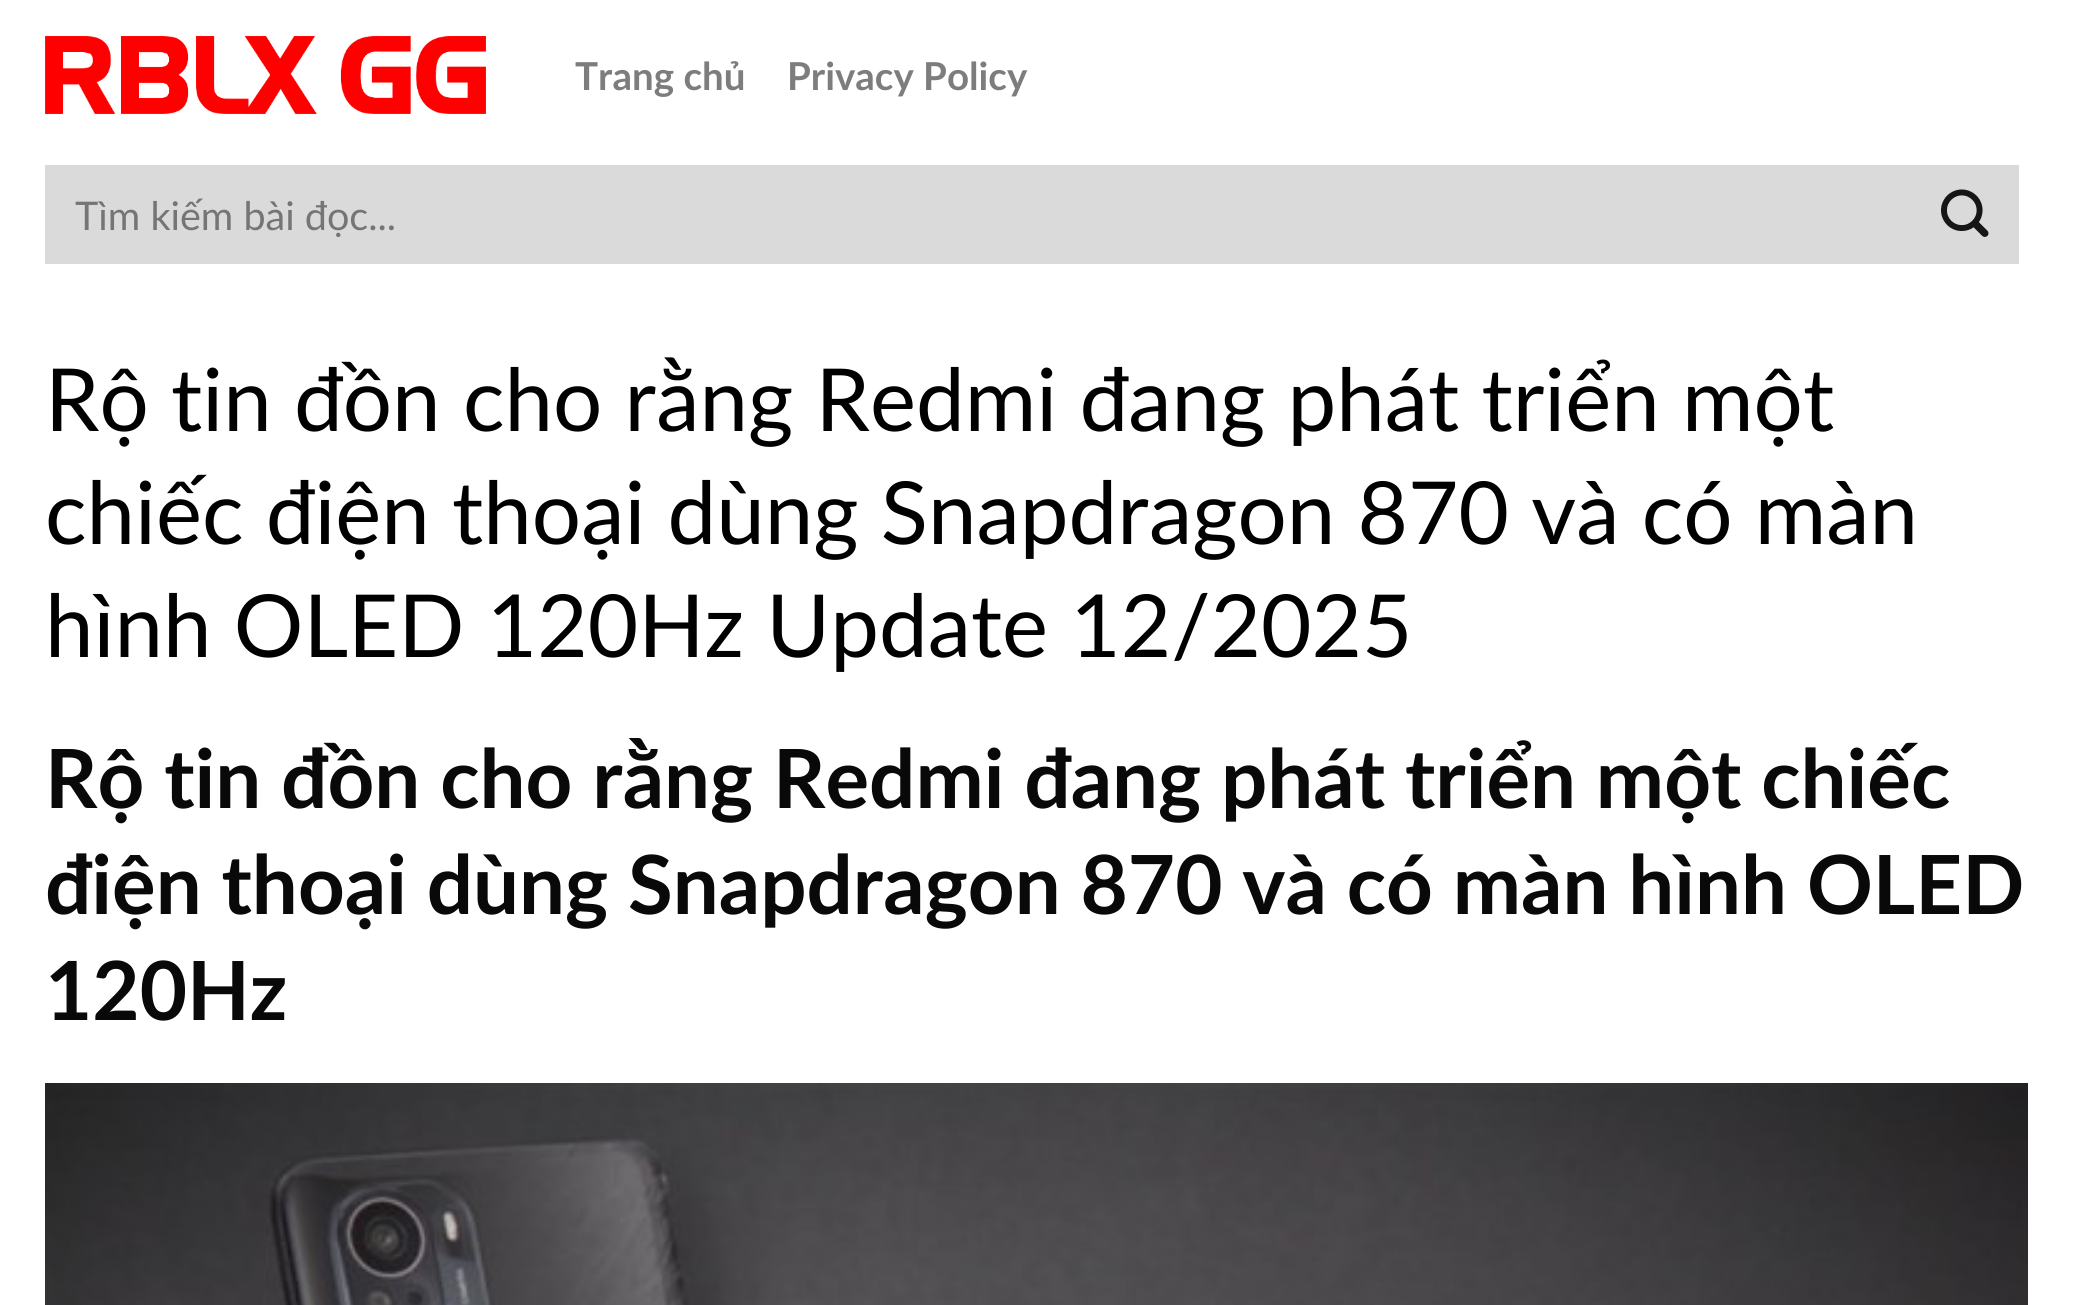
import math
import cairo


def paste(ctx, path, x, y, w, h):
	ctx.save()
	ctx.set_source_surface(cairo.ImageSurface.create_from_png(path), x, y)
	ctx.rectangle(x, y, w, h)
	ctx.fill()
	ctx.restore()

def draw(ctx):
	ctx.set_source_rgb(1, 1, 1)
	ctx.paint()
	paste(ctx, 'media/1.png', 45, 36, 441, 78)
	ctx.select_font_face('Lato', cairo.FONT_SLANT_NORMAL, cairo.FONT_WEIGHT_BOLD)
	ctx.set_font_size(38.5)
	ctx.set_source_rgb(0.49, 0.49, 0.49)
	ctx.move_to(575, 90)
	ctx.show_text('Trang chủ')
	ctx.move_to(787, 90)
	ctx.show_text('Privacy Policy')
	ctx.set_source_rgb(0.855, 0.855, 0.855)
	ctx.rectangle(45, 165, 1974, 99)
	ctx.fill()
	ctx.select_font_face('Lato')
	ctx.set_font_size(39.5)
	ctx.set_source_rgb(0.459, 0.459, 0.459)
	ctx.move_to(75, 230)
	ctx.show_text('Tìm kiếm bài đọc...')
	paste(ctx, 'media/2.png', 1941, 189, 48, 48)
	ctx.set_font_size(87)
	ctx.set_source_rgb(0, 0, 0)
	for x, y, s in [
		(45, 431, 'Rộ tin đồn cho rằng Redmi đang phát triển một'),
		(45, 544, 'chiếc điện thoại dùng Snapdragon 870 và có màn'),
		(45, 657, 'hình OLED 120Hz Update 12/2025'),
	]:
		ctx.move_to(x, y)
		ctx.show_text(s)
	ctx.select_font_face('Lato', cairo.FONT_SLANT_NORMAL, cairo.FONT_WEIGHT_BOLD)
	ctx.set_font_size(81.6)
	ctx.set_source_rgb(0.039, 0.039, 0.039)
	for x, y, s in [
		(45, 808, 'Rộ tin đồn cho rằng Redmi đang phát triển một chiếc'),
		(45, 914, 'điện thoại dùng Snapdragon 870 và có màn hình OLED'),
		(45, 1020, '120Hz'),
	]:
		ctx.move_to(x, y)
		ctx.show_text(s)
	paste(ctx, 'media/3.png', 45, 1083, 1983, 222)


surface = cairo.ImageSurface(cairo.FORMAT_RGB24, 2073, 1305)
ctx = cairo.Context(surface)
options = cairo.FontOptions()
options.set_hint_metrics(cairo.HINT_METRICS_OFF)
options.set_hint_style(cairo.HINT_STYLE_NONE)
ctx.set_font_options(options)
ctx.set_miter_limit(4)
draw(ctx)
surface.write_to_png('image.png')
